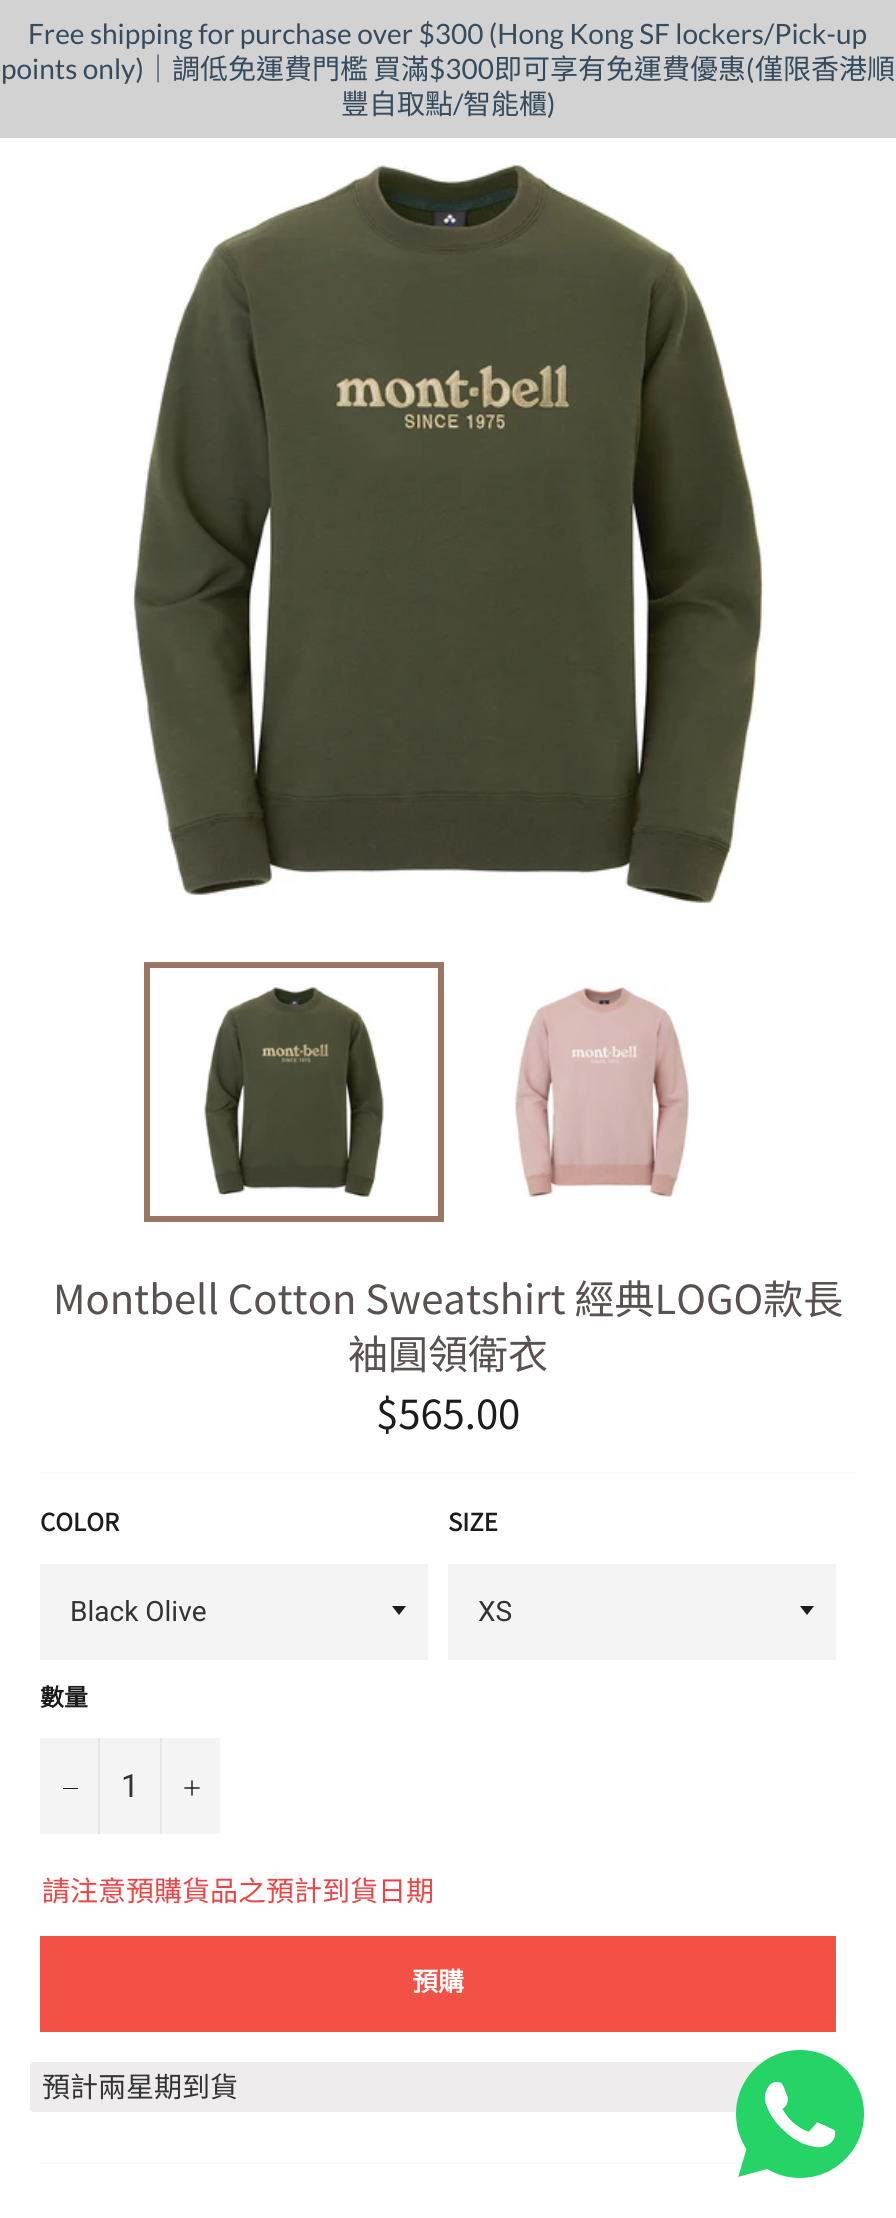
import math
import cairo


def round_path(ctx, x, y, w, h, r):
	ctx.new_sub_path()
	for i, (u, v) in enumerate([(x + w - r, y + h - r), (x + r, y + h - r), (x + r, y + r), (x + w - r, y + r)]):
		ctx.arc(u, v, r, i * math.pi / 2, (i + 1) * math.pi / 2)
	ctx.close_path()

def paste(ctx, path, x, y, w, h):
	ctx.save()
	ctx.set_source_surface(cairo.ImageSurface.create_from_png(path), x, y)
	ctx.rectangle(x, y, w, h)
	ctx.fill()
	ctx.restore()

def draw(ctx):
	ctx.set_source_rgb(1, 1, 1)
	ctx.paint()
	ctx.set_source_rgb(0.824, 0.824, 0.824)
	ctx.rectangle(0, 0, 896, 138)
	ctx.fill()
	ctx.select_font_face('Lato')
	ctx.set_font_size(28)
	ctx.set_source_rgb(0.208, 0.294, 0.369)
	ctx.move_to(28, 44)
	ctx.show_text('Free shipping for purchase over $300 (Hong Kong SF lockers/Pick-up')
	ctx.move_to(1, 79)
	ctx.show_text('points only)')
	ctx.select_font_face('Noto Sans CJK TC')
	ctx.move_to(144, 79)
	ctx.show_text('｜調低免運費門檻')
	ctx.move_to(373, 79)
	ctx.show_text('買滿')
	ctx.select_font_face('Lato')
	ctx.move_to(429, 79)
	ctx.show_text('$300')
	ctx.select_font_face('Noto Sans CJK TC')
	ctx.move_to(494, 79)
	ctx.show_text('即可享有免運費優惠')
	ctx.select_font_face('Lato')
	ctx.move_to(746, 79)
	ctx.show_text('(')
	ctx.select_font_face('Noto Sans CJK TC')
	ctx.move_to(755, 79)
	ctx.show_text('僅限香港順')
	ctx.move_to(341, 114)
	ctx.show_text('豐自取點')
	ctx.select_font_face('Lato')
	ctx.move_to(453, 114)
	ctx.show_text('/')
	ctx.select_font_face('Noto Sans CJK TC')
	ctx.move_to(463, 114)
	ctx.show_text('智能櫃')
	ctx.select_font_face('Lato')
	ctx.move_to(547, 114)
	ctx.show_text(')')
	paste(ctx, 'media/1.png', 131, 164, 634, 740)
	paste(ctx, 'media/2.png', 204, 982, 182, 216)
	ctx.rectangle(147, 965, 294, 254)
	ctx.set_source_rgb(0.608, 0.463, 0.396)
	ctx.set_line_width(6)
	ctx.stroke()
	paste(ctx, 'media/3.png', 514, 982, 176, 217)
	ctx.select_font_face('Noto Sans TC Thin')
	ctx.set_font_size(40)
	ctx.set_source_rgb(0.349, 0.314, 0.314)
	ctx.move_to(53, 1314)
	ctx.show_text('Montbell Cotton Sweatshirt 經典LOGO款長')
	ctx.move_to(348, 1369)
	ctx.show_text('袖圓領衛衣')
	ctx.set_source_rgb(0.114, 0.11, 0.11)
	ctx.move_to(376, 1429)
	ctx.show_text('$565.00')
	ctx.set_source_rgb(0.98, 0.98, 0.98)
	ctx.rectangle(40, 1472, 816, 2)
	ctx.fill()
	ctx.select_font_face('Noto Sans TC', cairo.FONT_SLANT_NORMAL, cairo.FONT_WEIGHT_BOLD)
	ctx.set_font_size(24)
	ctx.set_source_rgb(0.114, 0.11, 0.11)
	ctx.move_to(40, 1531)
	ctx.show_text('COLOR')
	ctx.set_source_rgb(0.957, 0.957, 0.957)
	ctx.rectangle(40, 1564, 388, 96)
	ctx.fill()
	ctx.set_source_rgb(0.114, 0.11, 0.11)
	ctx.new_path()
	ctx.move_to(392, 1606)
	ctx.line_to(399, 1615)
	ctx.line_to(406, 1606)
	ctx.close_path()
	ctx.fill()
	ctx.select_font_face('Roboto')
	ctx.set_font_size(28)
	ctx.set_source_rgb(0.2, 0.2, 0.2)
	ctx.move_to(70, 1621)
	ctx.show_text('Black Olive')
	ctx.select_font_face('Noto Sans TC', cairo.FONT_SLANT_NORMAL, cairo.FONT_WEIGHT_BOLD)
	ctx.set_font_size(24)
	ctx.set_source_rgb(0.114, 0.11, 0.11)
	ctx.move_to(448, 1531)
	ctx.show_text('SIZE')
	ctx.set_source_rgb(0.957, 0.957, 0.957)
	ctx.rectangle(448, 1564, 388, 96)
	ctx.fill()
	ctx.set_source_rgb(0.114, 0.11, 0.11)
	ctx.new_path()
	ctx.move_to(800, 1606)
	ctx.line_to(807, 1615)
	ctx.line_to(814, 1606)
	ctx.close_path()
	ctx.fill()
	ctx.select_font_face('Roboto')
	ctx.set_font_size(28)
	ctx.set_source_rgb(0.2, 0.2, 0.2)
	ctx.move_to(478, 1621)
	ctx.show_text('XS')
	ctx.select_font_face('Noto Sans TC', cairo.FONT_SLANT_NORMAL, cairo.FONT_WEIGHT_BOLD)
	ctx.set_font_size(24)
	ctx.set_source_rgb(0.114, 0.11, 0.11)
	ctx.move_to(40, 1706)
	ctx.show_text('數量')
	ctx.set_source_rgb(0.957, 0.957, 0.957)
	ctx.rectangle(40, 1738, 180, 96)
	ctx.fill()
	ctx.set_source_rgb(0.906, 0.906, 0.906)
	ctx.rectangle(98, 1738, 2, 96)
	ctx.fill()
	ctx.set_source_rgb(0.114, 0.11, 0.11)
	ctx.rectangle(63, 1788, 15, 1)
	ctx.fill()
	ctx.select_font_face('Roboto')
	ctx.set_font_size(32)
	ctx.set_source_rgb(0.2, 0.2, 0.2)
	ctx.move_to(121, 1797)
	ctx.show_text('1')
	ctx.set_source_rgb(0.906, 0.906, 0.906)
	ctx.rectangle(160, 1738, 2, 96)
	ctx.fill()
	paste(ctx, 'media/4.png', 184, 1780, 16, 16)
	ctx.select_font_face('Noto Sans TC Thin')
	ctx.set_font_size(28)
	ctx.set_source_rgb(0.933, 0.267, 0.267)
	ctx.move_to(42, 1901)
	ctx.show_text('請注意預購貨品之預計到貨日期')
	ctx.set_source_rgb(0.953, 0.314, 0.275)
	ctx.rectangle(40, 1936, 796, 96)
	ctx.fill()
	ctx.select_font_face('Noto Sans CJK TC', cairo.FONT_SLANT_NORMAL, cairo.FONT_WEIGHT_BOLD)
	ctx.set_font_size(26)
	ctx.set_source_rgb(1, 1, 1)
	ctx.move_to(412, 1991)
	ctx.show_text('預購')
	ctx.set_source_rgb(0.933, 0.925, 0.925)
	round_path(ctx, 30, 2062, 816, 50, 4)
	ctx.fill()
	ctx.select_font_face('Noto Sans TC Thin')
	ctx.set_font_size(28)
	ctx.set_source_rgb(0.2, 0.2, 0.2)
	ctx.move_to(42, 2097)
	ctx.show_text('預計兩星期到貨')
	ctx.set_source_rgb(0.98, 0.98, 0.98)
	ctx.rectangle(40, 2162, 816, 2)
	ctx.fill()
	paste(ctx, 'media/5.png', 736, 2050, 128, 128)


surface = cairo.ImageSurface(cairo.FORMAT_RGB24, 896, 2218)
ctx = cairo.Context(surface)
options = cairo.FontOptions()
options.set_hint_metrics(cairo.HINT_METRICS_OFF)
options.set_hint_style(cairo.HINT_STYLE_NONE)
ctx.set_font_options(options)
ctx.set_miter_limit(4)
draw(ctx)
surface.write_to_png('image.png')
